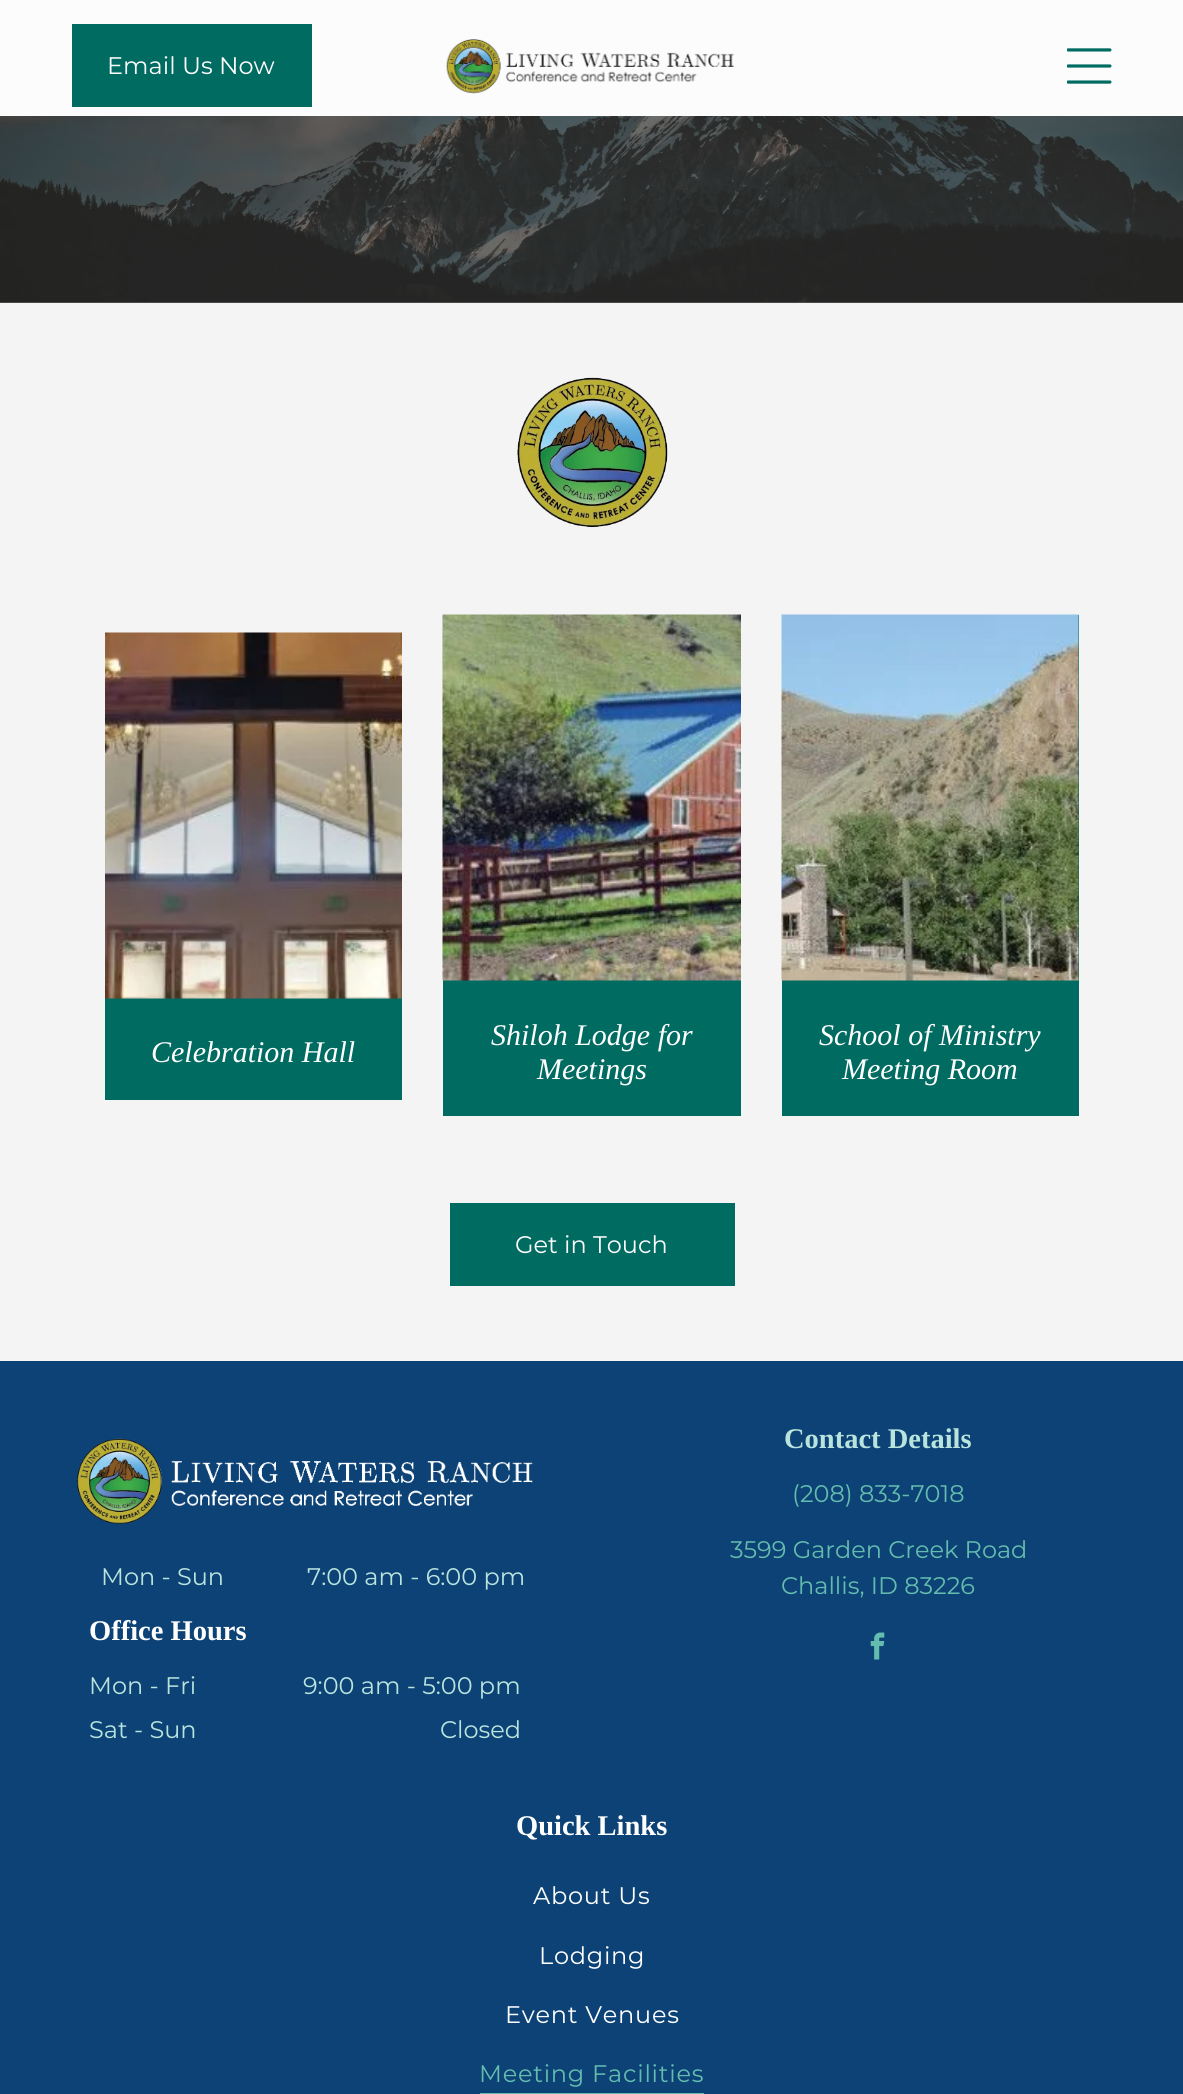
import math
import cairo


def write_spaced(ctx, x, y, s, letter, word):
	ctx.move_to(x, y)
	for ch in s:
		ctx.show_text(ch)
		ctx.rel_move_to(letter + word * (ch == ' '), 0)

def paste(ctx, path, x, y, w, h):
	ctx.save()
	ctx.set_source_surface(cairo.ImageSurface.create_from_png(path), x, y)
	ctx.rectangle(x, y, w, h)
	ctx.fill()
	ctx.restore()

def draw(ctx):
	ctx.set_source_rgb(0.957, 0.957, 0.957)
	ctx.paint()
	ctx.set_source_rgb(0.427, 0.427, 0.427)
	ctx.rectangle(0, 302, 1183, 1)
	ctx.fill()
	ctx.set_source_rgb(0.988, 0.988, 0.988)
	ctx.rectangle(0, 0, 1183, 116)
	ctx.fill()
	ctx.set_source_rgb(0, 0.42, 0.38)
	ctx.rectangle(73.5, 25.5, 237, 80)
	ctx.fill_preserve()
	ctx.set_line_width(3)
	ctx.stroke()
	ctx.select_font_face('Montserrat')
	ctx.set_font_size(24)
	ctx.set_source_rgb(1, 1, 1)
	ctx.move_to(107, 74)
	ctx.show_text('Email Us Now')
	paste(ctx, 'media/1.png', 446, 39, 289, 55)
	paste(ctx, 'media/2.png', 1067, 48, 45, 36)
	paste(ctx, 'media/3.png', 0, 116, 1183, 187)
	paste(ctx, 'media/4.png', 517, 377, 151, 151)
	ctx.set_source_rgb(0, 0.42, 0.38)
	ctx.rectangle(105, 998, 297, 102)
	ctx.fill()
	paste(ctx, 'media/5.png', 105, 632, 297, 367)
	ctx.select_font_face('Liberation Serif', cairo.FONT_SLANT_ITALIC)
	ctx.set_font_size(30)
	ctx.set_source_rgb(1, 1, 1)
	ctx.move_to(151, 1062)
	ctx.show_text('Celebration Hall')
	ctx.set_source_rgb(0, 0.42, 0.38)
	ctx.rectangle(443, 980, 298, 136)
	ctx.fill()
	paste(ctx, 'media/6.png', 442, 614, 299, 367)
	ctx.set_source_rgb(1, 1, 1)
	ctx.move_to(491, 1045)
	ctx.show_text('Shiloh Lodge for')
	ctx.move_to(537, 1079)
	ctx.show_text('Meetings')
	ctx.set_source_rgb(0, 0.42, 0.38)
	ctx.rectangle(782, 615, 297, 501)
	ctx.fill()
	paste(ctx, 'media/7.png', 781, 614, 298, 367)
	ctx.set_source_rgb(1, 1, 1)
	ctx.move_to(819, 1045)
	ctx.show_text('School of Ministry')
	ctx.move_to(842, 1079)
	ctx.show_text('Meeting Room')
	ctx.set_source_rgb(0, 0.42, 0.38)
	ctx.rectangle(451.5, 1204.5, 282, 80)
	ctx.fill_preserve()
	ctx.stroke()
	ctx.select_font_face('Montserrat')
	ctx.set_font_size(24)
	ctx.set_source_rgb(1, 1, 1)
	ctx.move_to(515, 1253)
	ctx.show_text('Get in Touch')
	ctx.set_source_rgb(0.047, 0.259, 0.459)
	ctx.rectangle(0, 1361, 1183, 733)
	ctx.fill()
	ctx.select_font_face('Liberation Serif', cairo.FONT_SLANT_NORMAL, cairo.FONT_WEIGHT_BOLD)
	ctx.set_font_size(28.5)
	ctx.set_source_rgb(0.725, 0.894, 0.871)
	ctx.move_to(784, 1448)
	ctx.show_text('Contact Details')
	ctx.select_font_face('Montserrat')
	ctx.set_font_size(24)
	ctx.set_source_rgb(0.392, 0.737, 0.686)
	for x, y, s in [
		(792, 1502, '(208) 833-7018'),
		(730, 1558, '3599 Garden Creek Road'),
		(781, 1594, 'Challis, ID 83226'),
	]:
		ctx.move_to(x, y)
		ctx.show_text(s)
	paste(ctx, 'media/8.png', 870, 1632, 15, 28)
	paste(ctx, 'media/9.png', 76, 1438, 457, 87)
	ctx.set_source_rgb(0.725, 0.894, 0.871)
	ctx.move_to(101, 1585)
	ctx.show_text('Mon - Sun')
	ctx.move_to(307, 1585)
	ctx.show_text('7:00 am - 6:00 pm')
	ctx.select_font_face('Liberation Serif', cairo.FONT_SLANT_NORMAL, cairo.FONT_WEIGHT_BOLD)
	ctx.set_font_size(28.5)
	ctx.set_source_rgb(1, 1, 1)
	ctx.move_to(89, 1640)
	ctx.show_text('Office Hours')
	ctx.select_font_face('Montserrat')
	ctx.set_font_size(24)
	ctx.set_source_rgb(0.725, 0.894, 0.871)
	for x, y, s in [
		(89, 1694, 'Mon - Fri'),
		(303, 1694, '9:00 am - 5:00 pm'),
		(89, 1738, 'Sat - Sun'),
		(440, 1738, 'Closed'),
	]:
		ctx.move_to(x, y)
		ctx.show_text(s)
	ctx.select_font_face('Liberation Serif', cairo.FONT_SLANT_NORMAL, cairo.FONT_WEIGHT_BOLD)
	ctx.set_font_size(28.5)
	ctx.set_source_rgb(1, 1, 1)
	ctx.move_to(516, 1835)
	ctx.show_text('Quick Links')
	ctx.select_font_face('Montserrat')
	ctx.set_font_size(24)
	for x, y, s in [
		(533, 1904, 'About Us'),
		(539, 1964, 'Lodging'),
		(505, 2023, 'Event Venues'),
	]:
		write_spaced(ctx, x, y, s, 0.75, 0)
	ctx.set_source_rgb(0.392, 0.737, 0.686)
	write_spaced(ctx, 479, 2082, 'Meeting Facilities', 0.75, 0)
	ctx.rectangle(480, 2093, 224, 1)
	ctx.fill()


surface = cairo.ImageSurface(cairo.FORMAT_RGB24, 1183, 2094)
ctx = cairo.Context(surface)
options = cairo.FontOptions()
options.set_hint_metrics(cairo.HINT_METRICS_OFF)
options.set_hint_style(cairo.HINT_STYLE_NONE)
ctx.set_font_options(options)
ctx.set_miter_limit(4)
draw(ctx)
surface.write_to_png('image.png')
